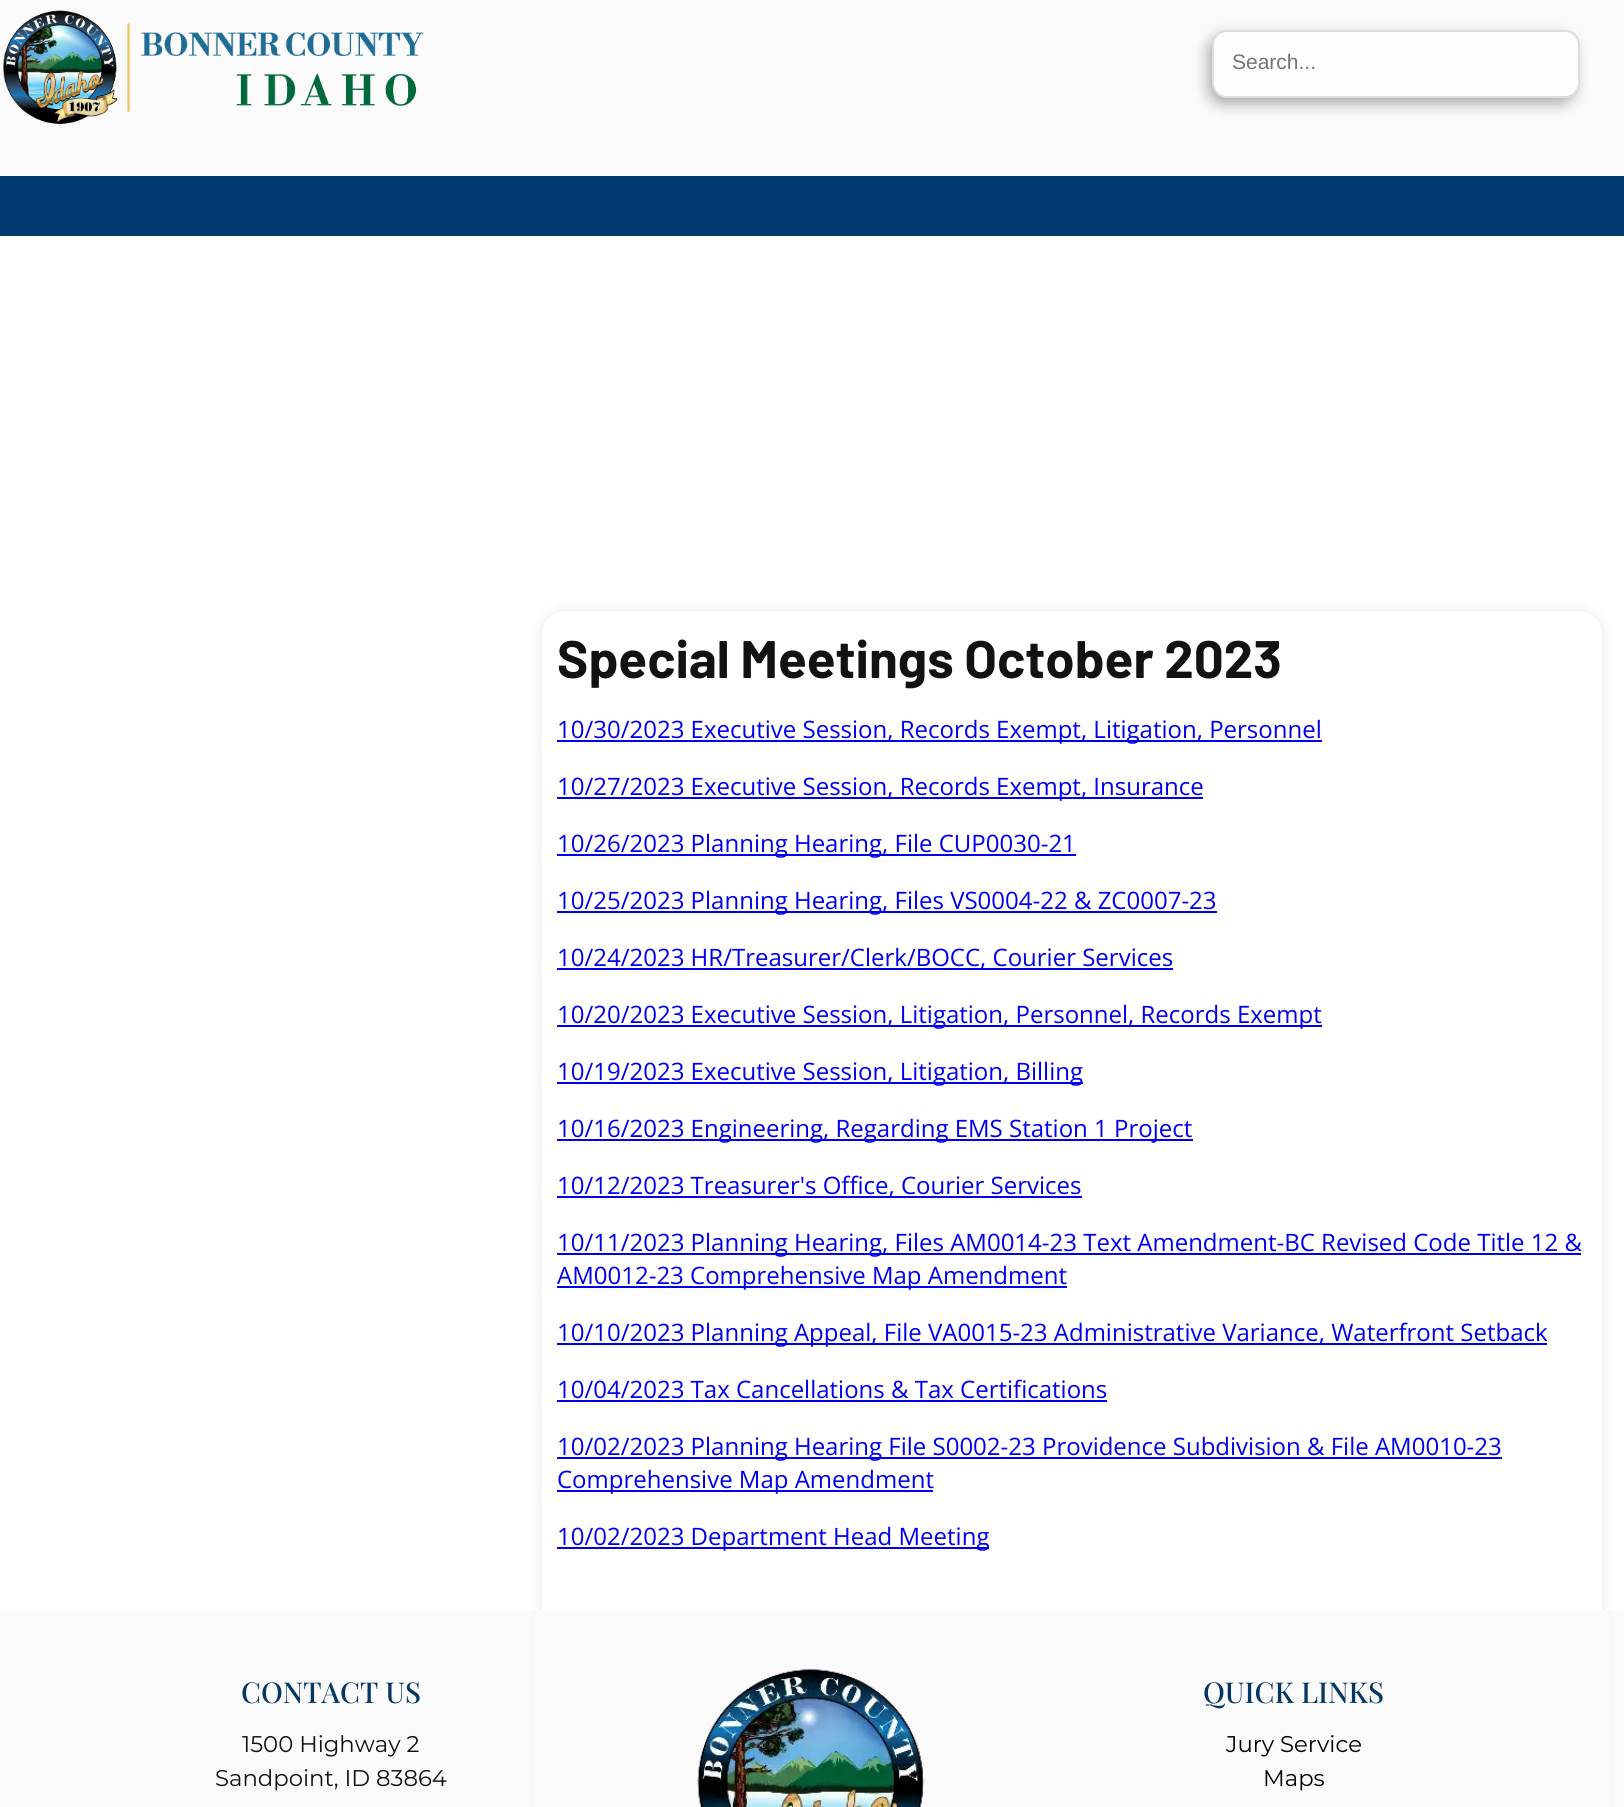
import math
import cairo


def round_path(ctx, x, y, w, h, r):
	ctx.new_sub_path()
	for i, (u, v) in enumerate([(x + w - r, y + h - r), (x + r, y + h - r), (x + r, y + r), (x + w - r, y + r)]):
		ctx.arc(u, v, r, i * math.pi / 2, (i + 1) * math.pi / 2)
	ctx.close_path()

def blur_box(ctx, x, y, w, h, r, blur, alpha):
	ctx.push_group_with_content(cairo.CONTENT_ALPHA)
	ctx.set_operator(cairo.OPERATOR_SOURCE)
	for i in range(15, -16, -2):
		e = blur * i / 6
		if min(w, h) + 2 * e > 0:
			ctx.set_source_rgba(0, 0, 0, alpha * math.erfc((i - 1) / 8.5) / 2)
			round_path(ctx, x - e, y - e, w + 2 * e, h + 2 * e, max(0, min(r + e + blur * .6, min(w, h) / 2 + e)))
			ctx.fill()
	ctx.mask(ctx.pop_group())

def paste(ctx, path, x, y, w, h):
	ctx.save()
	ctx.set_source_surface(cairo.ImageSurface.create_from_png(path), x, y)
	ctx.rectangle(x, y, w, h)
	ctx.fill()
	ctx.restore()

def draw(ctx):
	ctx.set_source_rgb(0.98, 0.98, 0.98)
	ctx.paint()
	paste(ctx, 'media/1.png', 3, 10, 421, 114)
	ctx.set_source_rgb(0, 0, 0)
	blur_box(ctx, 1208, 36, 367, 68, 15, 7, 0.31)
	ctx.set_source_rgb(0.992, 0.992, 0.992)
	round_path(ctx, 1213, 31, 366, 66, 14)
	ctx.fill_preserve()
	ctx.set_source_rgb(0.867, 0.867, 0.867)
	ctx.stroke()
	ctx.select_font_face('Liberation Sans')
	ctx.set_font_size(21)
	ctx.set_source_rgb(0.459, 0.459, 0.459)
	ctx.move_to(1232, 69)
	ctx.show_text('Search...')
	ctx.set_source_rgb(0, 0.227, 0.439)
	ctx.rectangle(0, 176, 1624, 60)
	ctx.fill()
	ctx.set_source_rgb(1, 1, 1)
	ctx.rectangle(0, 236, 1624, 1374)
	ctx.fill()
	ctx.set_source_rgb(0, 0, 0)
	blur_box(ctx, 542, 611, 1060, 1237, 23, 6, 0.1)
	ctx.set_source_rgb(1, 1, 1)
	round_path(ctx, 542, 611, 1060, 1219, 23)
	ctx.fill()
	ctx.select_font_face('Barlow', cairo.FONT_SLANT_NORMAL, cairo.FONT_WEIGHT_BOLD)
	ctx.set_font_size(52.75)
	ctx.set_source_rgb(0.071, 0.071, 0.071)
	ctx.move_to(557, 678)
	ctx.show_text('Special Meetings October 2023')
	ctx.set_source_rgb(0, 0, 0.933)
	ctx.rectangle(557, 740, 765, 2)
	ctx.fill()
	ctx.select_font_face('Open Sans')
	ctx.set_font_size(24)
	ctx.move_to(557, 738)
	ctx.show_text('10/30/2023 Executive Session, Records Exempt, Litigation, Personnel')
	ctx.rectangle(557, 797, 646, 2)
	ctx.fill()
	ctx.move_to(557, 795)
	ctx.show_text('10/27/2023 Executive Session, Records Exempt, Insurance')
	ctx.rectangle(557, 854, 519, 2)
	ctx.fill()
	ctx.move_to(557, 852)
	ctx.show_text('10/26/2023 Planning Hearing, File CUP0030-21')
	ctx.rectangle(557, 911, 660, 2)
	ctx.fill()
	ctx.move_to(557, 909)
	ctx.show_text('10/25/2023 Planning Hearing, Files VS0004-22 & ZC0007-23')
	ctx.rectangle(557, 968, 616, 2)
	ctx.fill()
	ctx.move_to(557, 966)
	ctx.show_text('10/24/2023 HR/Treasurer/Clerk/BOCC, Courier Services')
	ctx.rectangle(557, 1025, 765, 2)
	ctx.fill()
	ctx.move_to(557, 1023)
	ctx.show_text('10/20/2023 Executive Session, Litigation, Personnel, Records Exempt')
	ctx.rectangle(557, 1082, 526, 2)
	ctx.fill()
	ctx.move_to(557, 1080)
	ctx.show_text('10/19/2023 Executive Session, Litigation, Billing')
	ctx.rectangle(557, 1139, 636, 2)
	ctx.fill()
	ctx.move_to(557, 1137)
	ctx.show_text('10/16/2023 Engineering, Regarding EMS Station 1 Project')
	ctx.rectangle(557, 1196, 525, 2)
	ctx.fill()
	ctx.move_to(557, 1194)
	ctx.show_text('10/12/2023 Treasurer\'s Office, Courier Services')
	ctx.rectangle(557, 1253, 1024, 2)
	ctx.fill()
	ctx.move_to(557, 1251)
	ctx.show_text('10/11/2023 Planning Hearing, Files AM0014-23 Text Amendment-BC Revised Code Title 12 &')
	ctx.rectangle(557, 1286, 510, 2)
	ctx.fill()
	ctx.move_to(557, 1284)
	ctx.show_text('AM0012-23 Comprehensive Map Amendment')
	ctx.rectangle(557, 1343, 990, 2)
	ctx.fill()
	ctx.move_to(557, 1341)
	ctx.show_text('10/10/2023 Planning Appeal, File VA0015-23 Administrative Variance, Waterfront Setback')
	ctx.move_to(557, 1398)
	ctx.show_text('10/04/2023 Tax Cancellations & Tax Certifications')
	ctx.rectangle(557, 1400, 550, 2)
	ctx.fill()
	ctx.rectangle(557, 1457, 945, 2)
	ctx.fill()
	ctx.move_to(557, 1455)
	ctx.show_text('10/02/2023 Planning Hearing File S0002-23 Providence Subdivision & File AM0010-23')
	ctx.rectangle(557, 1490, 376, 2)
	ctx.fill()
	ctx.move_to(557, 1488)
	ctx.show_text('Comprehensive Map Amendment')
	ctx.rectangle(557, 1547, 432, 2)
	ctx.fill()
	ctx.move_to(557, 1545)
	ctx.show_text('10/02/2023 Department Head Meeting')
	ctx.set_source_rgb(0.98, 0.98, 0.98)
	ctx.rectangle(534, 1610, 1076, 197)
	ctx.fill()
	ctx.select_font_face('Playfair Display Medium')
	ctx.set_font_size(28.75)
	ctx.set_source_rgb(0.027, 0.216, 0.388)
	ctx.move_to(241, 1703)
	ctx.show_text('CONTACT US')
	ctx.select_font_face('Montserrat')
	ctx.set_font_size(22.75)
	ctx.set_source_rgb(0.071, 0.071, 0.071)
	ctx.move_to(242, 1752)
	ctx.show_text('1500 Highway 2')
	ctx.move_to(215, 1786)
	ctx.show_text('Sandpoint, ID 83864')
	paste(ctx, 'media/2.png', 697, 1669, 227, 138)
	ctx.select_font_face('Playfair Display Medium')
	ctx.set_font_size(28.75)
	ctx.set_source_rgb(0.027, 0.216, 0.388)
	ctx.move_to(1203, 1703)
	ctx.show_text('QUICK LINKS')
	ctx.select_font_face('Montserrat')
	ctx.set_font_size(22.75)
	ctx.set_source_rgb(0, 0, 0)
	ctx.move_to(1226, 1752)
	ctx.show_text('Jury Service')
	ctx.move_to(1263, 1786)
	ctx.show_text('Maps')


surface = cairo.ImageSurface(cairo.FORMAT_RGB24, 1624, 1807)
ctx = cairo.Context(surface)
options = cairo.FontOptions()
options.set_hint_metrics(cairo.HINT_METRICS_OFF)
options.set_hint_style(cairo.HINT_STYLE_NONE)
ctx.set_font_options(options)
ctx.set_miter_limit(4)
draw(ctx)
surface.write_to_png('image.png')
